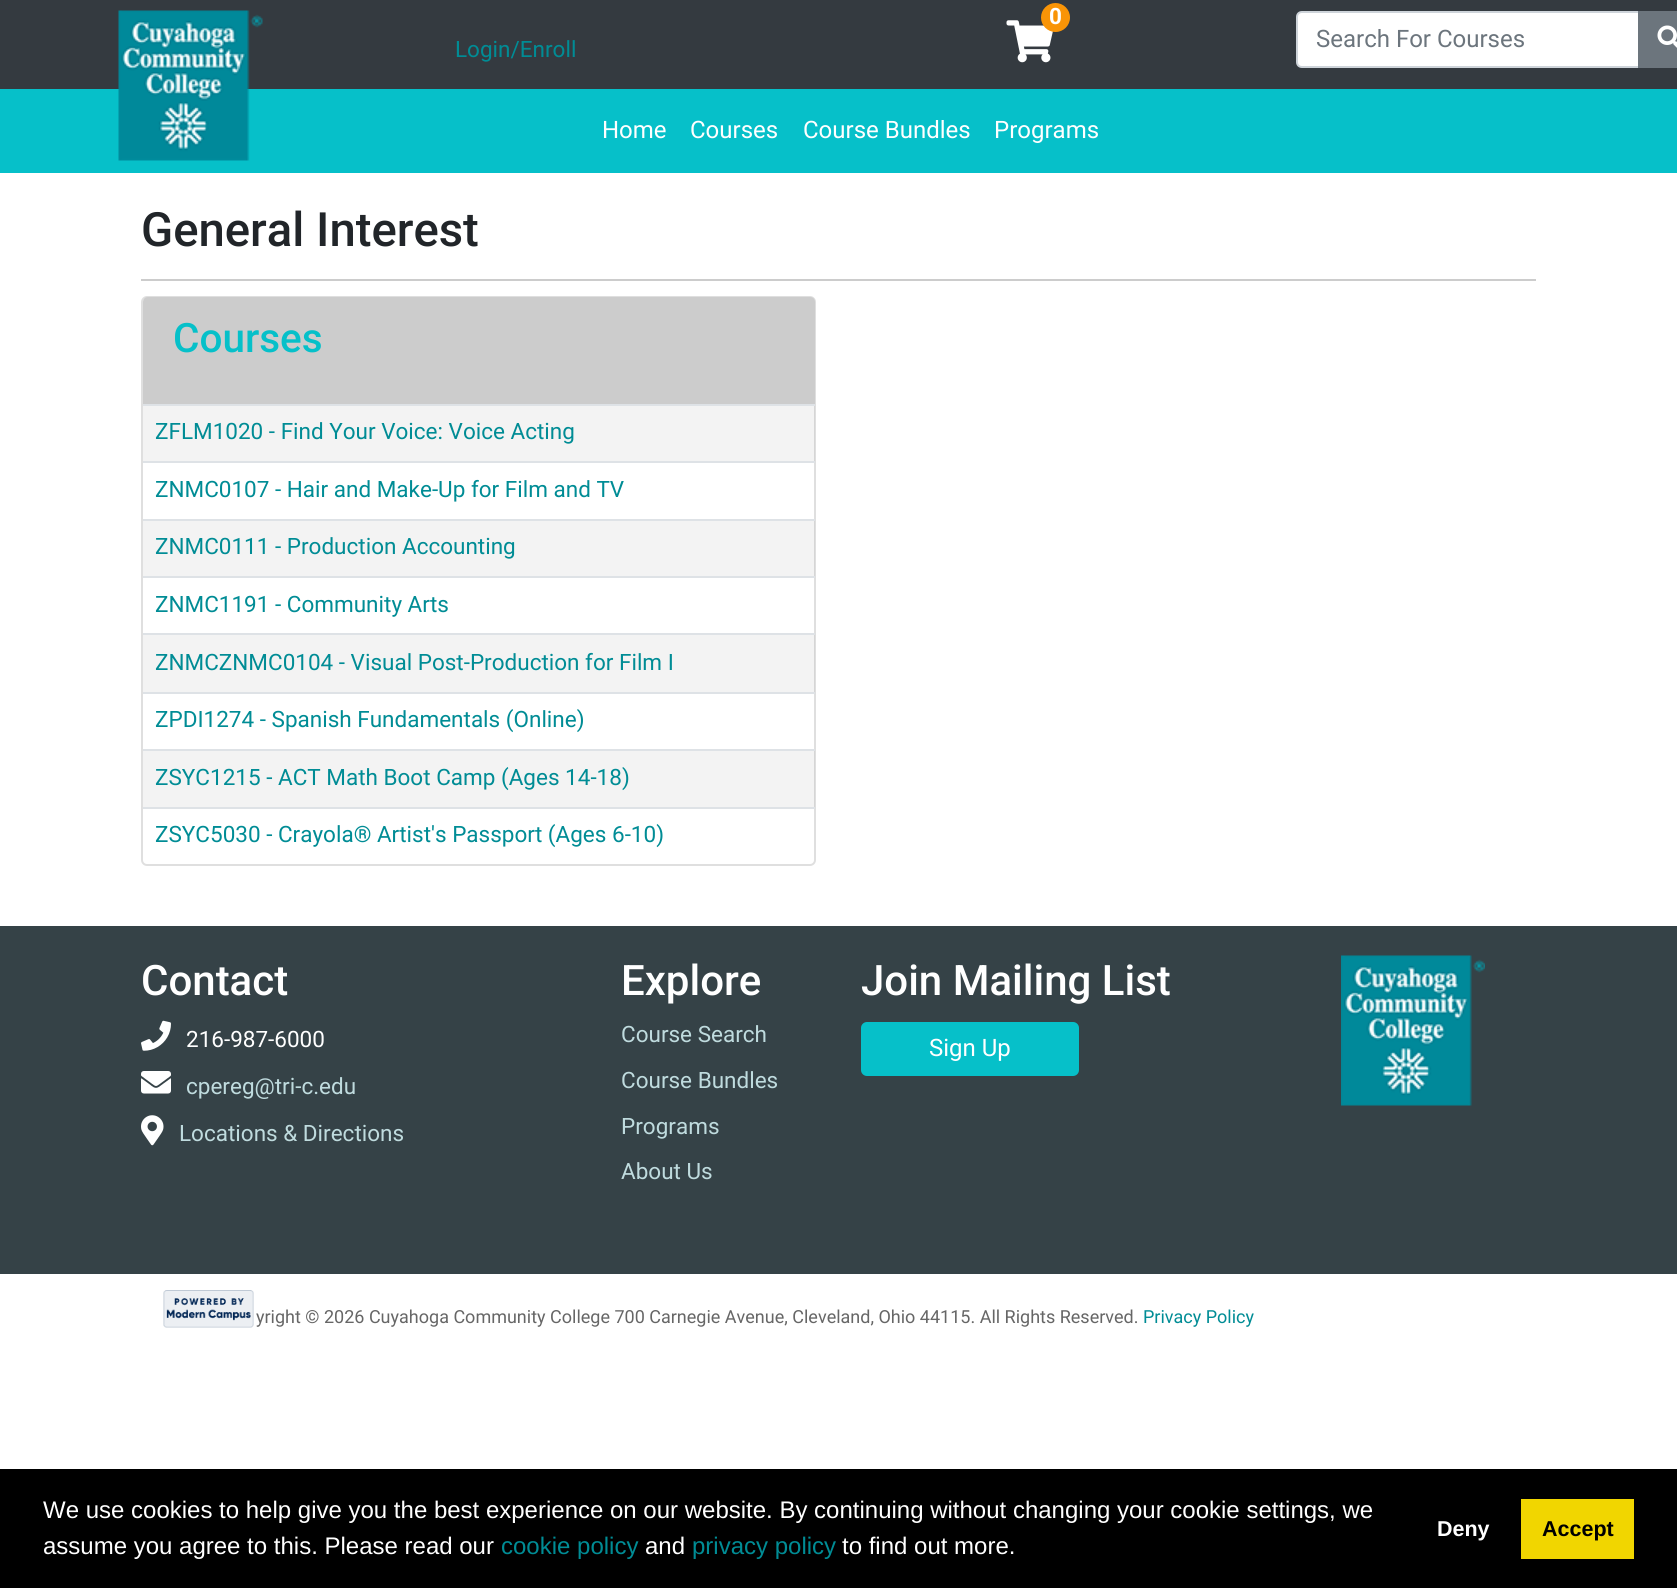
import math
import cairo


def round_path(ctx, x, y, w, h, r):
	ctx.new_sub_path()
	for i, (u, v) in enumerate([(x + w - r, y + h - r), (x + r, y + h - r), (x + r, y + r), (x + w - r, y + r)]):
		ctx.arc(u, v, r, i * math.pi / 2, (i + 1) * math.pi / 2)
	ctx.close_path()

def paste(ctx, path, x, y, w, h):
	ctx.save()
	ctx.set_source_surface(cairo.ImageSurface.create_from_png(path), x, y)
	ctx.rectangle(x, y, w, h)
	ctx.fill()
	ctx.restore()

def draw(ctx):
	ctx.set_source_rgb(1, 1, 1)
	ctx.paint()
	ctx.set_source_rgb(0.204, 0.227, 0.251)
	ctx.rectangle(0, 0, 1677, 89)
	ctx.fill()
	ctx.set_source_rgb(0.027, 0.753, 0.788)
	ctx.rectangle(0, 89, 1677, 84)
	ctx.fill()
	paste(ctx, 'media/1.png', 118, 10, 145, 151)
	ctx.select_font_face('Roboto')
	ctx.set_font_size(22.5)
	ctx.set_source_rgb(0, 0.549, 0.584)
	ctx.move_to(455, 57)
	ctx.show_text('Login/Enroll')
	paste(ctx, 'media/2.png', 1006, 20, 47, 43)
	ctx.set_source_rgb(0.973, 0.58, 0.024)
	ctx.arc(1055.5, 17.5, 14.5, 0, 2 * math.pi)
	ctx.fill()
	ctx.select_font_face('Roboto', cairo.FONT_SLANT_NORMAL, cairo.FONT_WEIGHT_BOLD)
	ctx.set_source_rgb(1, 1, 1)
	ctx.move_to(1049, 24)
	ctx.show_text('0')
	ctx.new_path()
	ctx.move_to(1302, 12)
	ctx.line_to(1639, 12)
	ctx.line_to(1639, 67)
	ctx.line_to(1302, 67)
	ctx.curve_to(1299, 67, 1297, 65, 1297, 62)
	ctx.line_to(1297, 17)
	ctx.curve_to(1297, 14, 1299, 12, 1302, 12)
	ctx.close_path()
	ctx.fill_preserve()
	ctx.set_source_rgb(0.808, 0.831, 0.855)
	ctx.stroke()
	ctx.select_font_face('Roboto')
	ctx.set_font_size(24)
	ctx.set_source_rgb(0.424, 0.459, 0.49)
	ctx.move_to(1316, 47)
	ctx.show_text('Search For Courses')
	ctx.rectangle(1638, 11, 39, 57)
	ctx.fill()
	paste(ctx, 'media/3.png', 1657, 25, 20, 23)
	ctx.set_source_rgb(1, 1, 1)
	for x, y, s in [
		(602, 138, 'Home'),
		(690, 138, 'Courses'),
		(803, 138, 'Course Bundles'),
		(994, 138, 'Programs'),
	]:
		ctx.move_to(x, y)
		ctx.show_text(s)
	ctx.set_source_rgb(0.8, 0.8, 0.8)
	ctx.rectangle(141, 279, 1395, 2)
	ctx.fill()
	ctx.select_font_face('Roboto Medium')
	ctx.set_font_size(47.25)
	ctx.set_source_rgb(0.129, 0.145, 0.161)
	ctx.move_to(141, 246)
	ctx.show_text('General Interest')
	round_path(ctx, 142, 297, 673, 568, 5)
	ctx.set_source_rgb(0.875, 0.875, 0.875)
	ctx.stroke()
	ctx.set_source_rgb(0.8, 0.8, 0.8)
	ctx.new_path()
	ctx.move_to(148, 297)
	ctx.line_to(810, 297)
	ctx.curve_to(813, 297, 815, 299, 815, 302)
	ctx.line_to(815, 404)
	ctx.line_to(143, 404)
	ctx.line_to(143, 302)
	ctx.curve_to(143, 299, 145, 297, 148, 297)
	ctx.close_path()
	ctx.fill()
	ctx.set_font_size(40.5)
	ctx.set_source_rgb(0.027, 0.753, 0.788)
	ctx.move_to(173, 352)
	ctx.show_text('Courses')
	ctx.set_source_rgba(0, 0, 0, 0.05)
	ctx.rectangle(143, 406, 672, 55)
	ctx.fill()
	ctx.set_source_rgb(0.871, 0.886, 0.902)
	ctx.rectangle(143, 404, 672, 2)
	ctx.fill()
	ctx.select_font_face('Roboto')
	ctx.set_font_size(22.5)
	ctx.set_source_rgb(0, 0.549, 0.584)
	ctx.move_to(155, 439)
	ctx.show_text('ZFLM1020 - Find Your Voice: Voice Acting')
	ctx.set_source_rgb(0.871, 0.886, 0.902)
	ctx.rectangle(143, 461, 672, 2)
	ctx.fill()
	ctx.set_source_rgb(0, 0.549, 0.584)
	ctx.move_to(155, 497)
	ctx.show_text('ZNMC0107 - Hair and Make-Up for Film and TV')
	ctx.set_source_rgba(0, 0, 0, 0.05)
	ctx.rectangle(143, 521, 672, 55)
	ctx.fill()
	ctx.set_source_rgb(0.871, 0.886, 0.902)
	ctx.rectangle(143, 519, 672, 2)
	ctx.fill()
	ctx.set_source_rgb(0, 0.549, 0.584)
	ctx.move_to(155, 554)
	ctx.show_text('ZNMC0111 - Production Accounting')
	ctx.set_source_rgb(0.871, 0.886, 0.902)
	ctx.rectangle(143, 576, 672, 2)
	ctx.fill()
	ctx.set_source_rgb(0, 0.549, 0.584)
	ctx.move_to(155, 612)
	ctx.show_text('ZNMC1191 - Community Arts')
	ctx.set_source_rgba(0, 0, 0, 0.05)
	ctx.rectangle(143, 635, 672, 57)
	ctx.fill()
	ctx.set_source_rgb(0.871, 0.886, 0.902)
	ctx.rectangle(143, 633, 672, 2)
	ctx.fill()
	ctx.set_source_rgb(0, 0.549, 0.584)
	ctx.move_to(155, 670)
	ctx.show_text('ZNMCZNMC0104 - Visual Post-Production for Film I')
	ctx.set_source_rgb(0.871, 0.886, 0.902)
	ctx.rectangle(143, 692, 672, 2)
	ctx.fill()
	ctx.set_source_rgb(0, 0.549, 0.584)
	ctx.move_to(155, 727)
	ctx.show_text('ZPDI1274 - Spanish Fundamentals (Online)')
	ctx.set_source_rgba(0, 0, 0, 0.05)
	ctx.rectangle(143, 751, 672, 56)
	ctx.fill()
	ctx.set_source_rgb(0.871, 0.886, 0.902)
	ctx.rectangle(143, 749, 672, 2)
	ctx.fill()
	ctx.set_source_rgb(0, 0.549, 0.584)
	ctx.move_to(155, 785)
	ctx.show_text('ZSYC1215 - ACT Math Boot Camp (Ages 14-18)')
	ctx.set_source_rgb(0.871, 0.886, 0.902)
	ctx.rectangle(143, 807, 672, 2)
	ctx.fill()
	ctx.set_source_rgb(0, 0.549, 0.584)
	ctx.move_to(155, 842)
	ctx.show_text('ZSYC5030 - Crayola® Artist\'s Passport (Ages 6-10)')
	ctx.set_source_rgb(0.208, 0.259, 0.278)
	ctx.rectangle(0, 926, 1677, 348)
	ctx.fill()
	ctx.select_font_face('Roboto Medium')
	ctx.set_font_size(42)
	ctx.set_source_rgb(1, 1, 1)
	ctx.move_to(141, 995)
	ctx.show_text('Contact')
	paste(ctx, 'media/4.png', 141, 1020, 30, 31)
	ctx.select_font_face('Roboto')
	ctx.set_font_size(22.5)
	ctx.move_to(186, 1047)
	ctx.show_text('216-987-6000')
	paste(ctx, 'media/5.png', 141, 1071, 30, 23)
	ctx.set_source_rgb(0.749, 0.859, 0.871)
	ctx.move_to(186, 1094)
	ctx.show_text('cpereg@tri-c.edu')
	paste(ctx, 'media/6.png', 141, 1115, 23, 31)
	ctx.move_to(179, 1141)
	ctx.show_text('Locations & Directions')
	ctx.select_font_face('Roboto Medium')
	ctx.set_font_size(42)
	ctx.set_source_rgb(1, 1, 1)
	ctx.move_to(621, 995)
	ctx.show_text('Explore')
	ctx.select_font_face('Roboto')
	ctx.set_font_size(22.5)
	ctx.set_source_rgb(0.749, 0.859, 0.871)
	for x, y, s in [
		(621, 1042, 'Course Search'),
		(621, 1088, 'Course Bundles'),
		(621, 1134, 'Programs'),
		(621, 1179, 'About Us'),
	]:
		ctx.move_to(x, y)
		ctx.show_text(s)
	ctx.select_font_face('Roboto Medium')
	ctx.set_font_size(42)
	ctx.set_source_rgb(1, 1, 1)
	ctx.move_to(861, 995)
	ctx.show_text('Join Mailing List')
	ctx.set_source_rgb(0.027, 0.753, 0.788)
	round_path(ctx, 861, 1022, 218, 54, 6)
	ctx.fill()
	ctx.select_font_face('Roboto')
	ctx.set_font_size(24)
	ctx.set_source_rgb(1, 1, 1)
	ctx.move_to(929, 1056)
	ctx.show_text('Sign Up')
	paste(ctx, 'media/7.png', 1341, 955, 144, 151)
	paste(ctx, 'media/8.png', 163, 1290, 91, 38)
	ctx.set_font_size(18)
	ctx.set_source_rgb(0.4, 0.4, 0.4)
	ctx.move_to(256, 1323)
	ctx.show_text('yright © 2026 Cuyahoga Community College 700 Carnegie Avenue, Cleveland, Ohio 44115. All Rights Reserved.')
	ctx.set_source_rgb(0, 0.549, 0.584)
	ctx.move_to(1143, 1323)
	ctx.show_text('Privacy Policy')
	ctx.set_source_rgb(0, 0, 0)
	ctx.rectangle(0, 1469, 1677, 119)
	ctx.fill()
	ctx.select_font_face('Liberation Sans')
	ctx.set_font_size(24)
	ctx.set_source_rgb(1, 1, 1)
	ctx.move_to(43, 1518)
	ctx.show_text('We use cookies to help give you the best experience on our website. By continuing without changing your cookie settings, we')
	ctx.move_to(43, 1554)
	ctx.show_text('assume you agree to this. Please read our')
	ctx.set_source_rgb(0, 0.549, 0.584)
	ctx.move_to(501, 1554)
	ctx.show_text('cookie policy')
	ctx.set_source_rgb(1, 1, 1)
	ctx.move_to(645, 1554)
	ctx.show_text('and')
	ctx.set_source_rgb(0, 0.549, 0.584)
	ctx.move_to(692, 1554)
	ctx.show_text('privacy policy')
	ctx.set_source_rgb(1, 1, 1)
	ctx.move_to(842, 1554)
	ctx.show_text('to find out more.')
	ctx.select_font_face('Liberation Sans', cairo.FONT_SLANT_NORMAL, cairo.FONT_WEIGHT_BOLD)
	ctx.set_font_size(21.5)
	ctx.move_to(1437, 1536)
	ctx.show_text('Deny')
	ctx.set_source_rgb(0.945, 0.839, 0)
	ctx.rectangle(1521, 1499, 113, 60)
	ctx.fill()
	ctx.set_source_rgb(0, 0, 0)
	ctx.move_to(1542, 1536)
	ctx.show_text('Accept')


surface = cairo.ImageSurface(cairo.FORMAT_RGB24, 1677, 1588)
ctx = cairo.Context(surface)
options = cairo.FontOptions()
options.set_hint_metrics(cairo.HINT_METRICS_OFF)
options.set_hint_style(cairo.HINT_STYLE_NONE)
ctx.set_font_options(options)
ctx.set_miter_limit(4)
draw(ctx)
surface.write_to_png('image.png')
